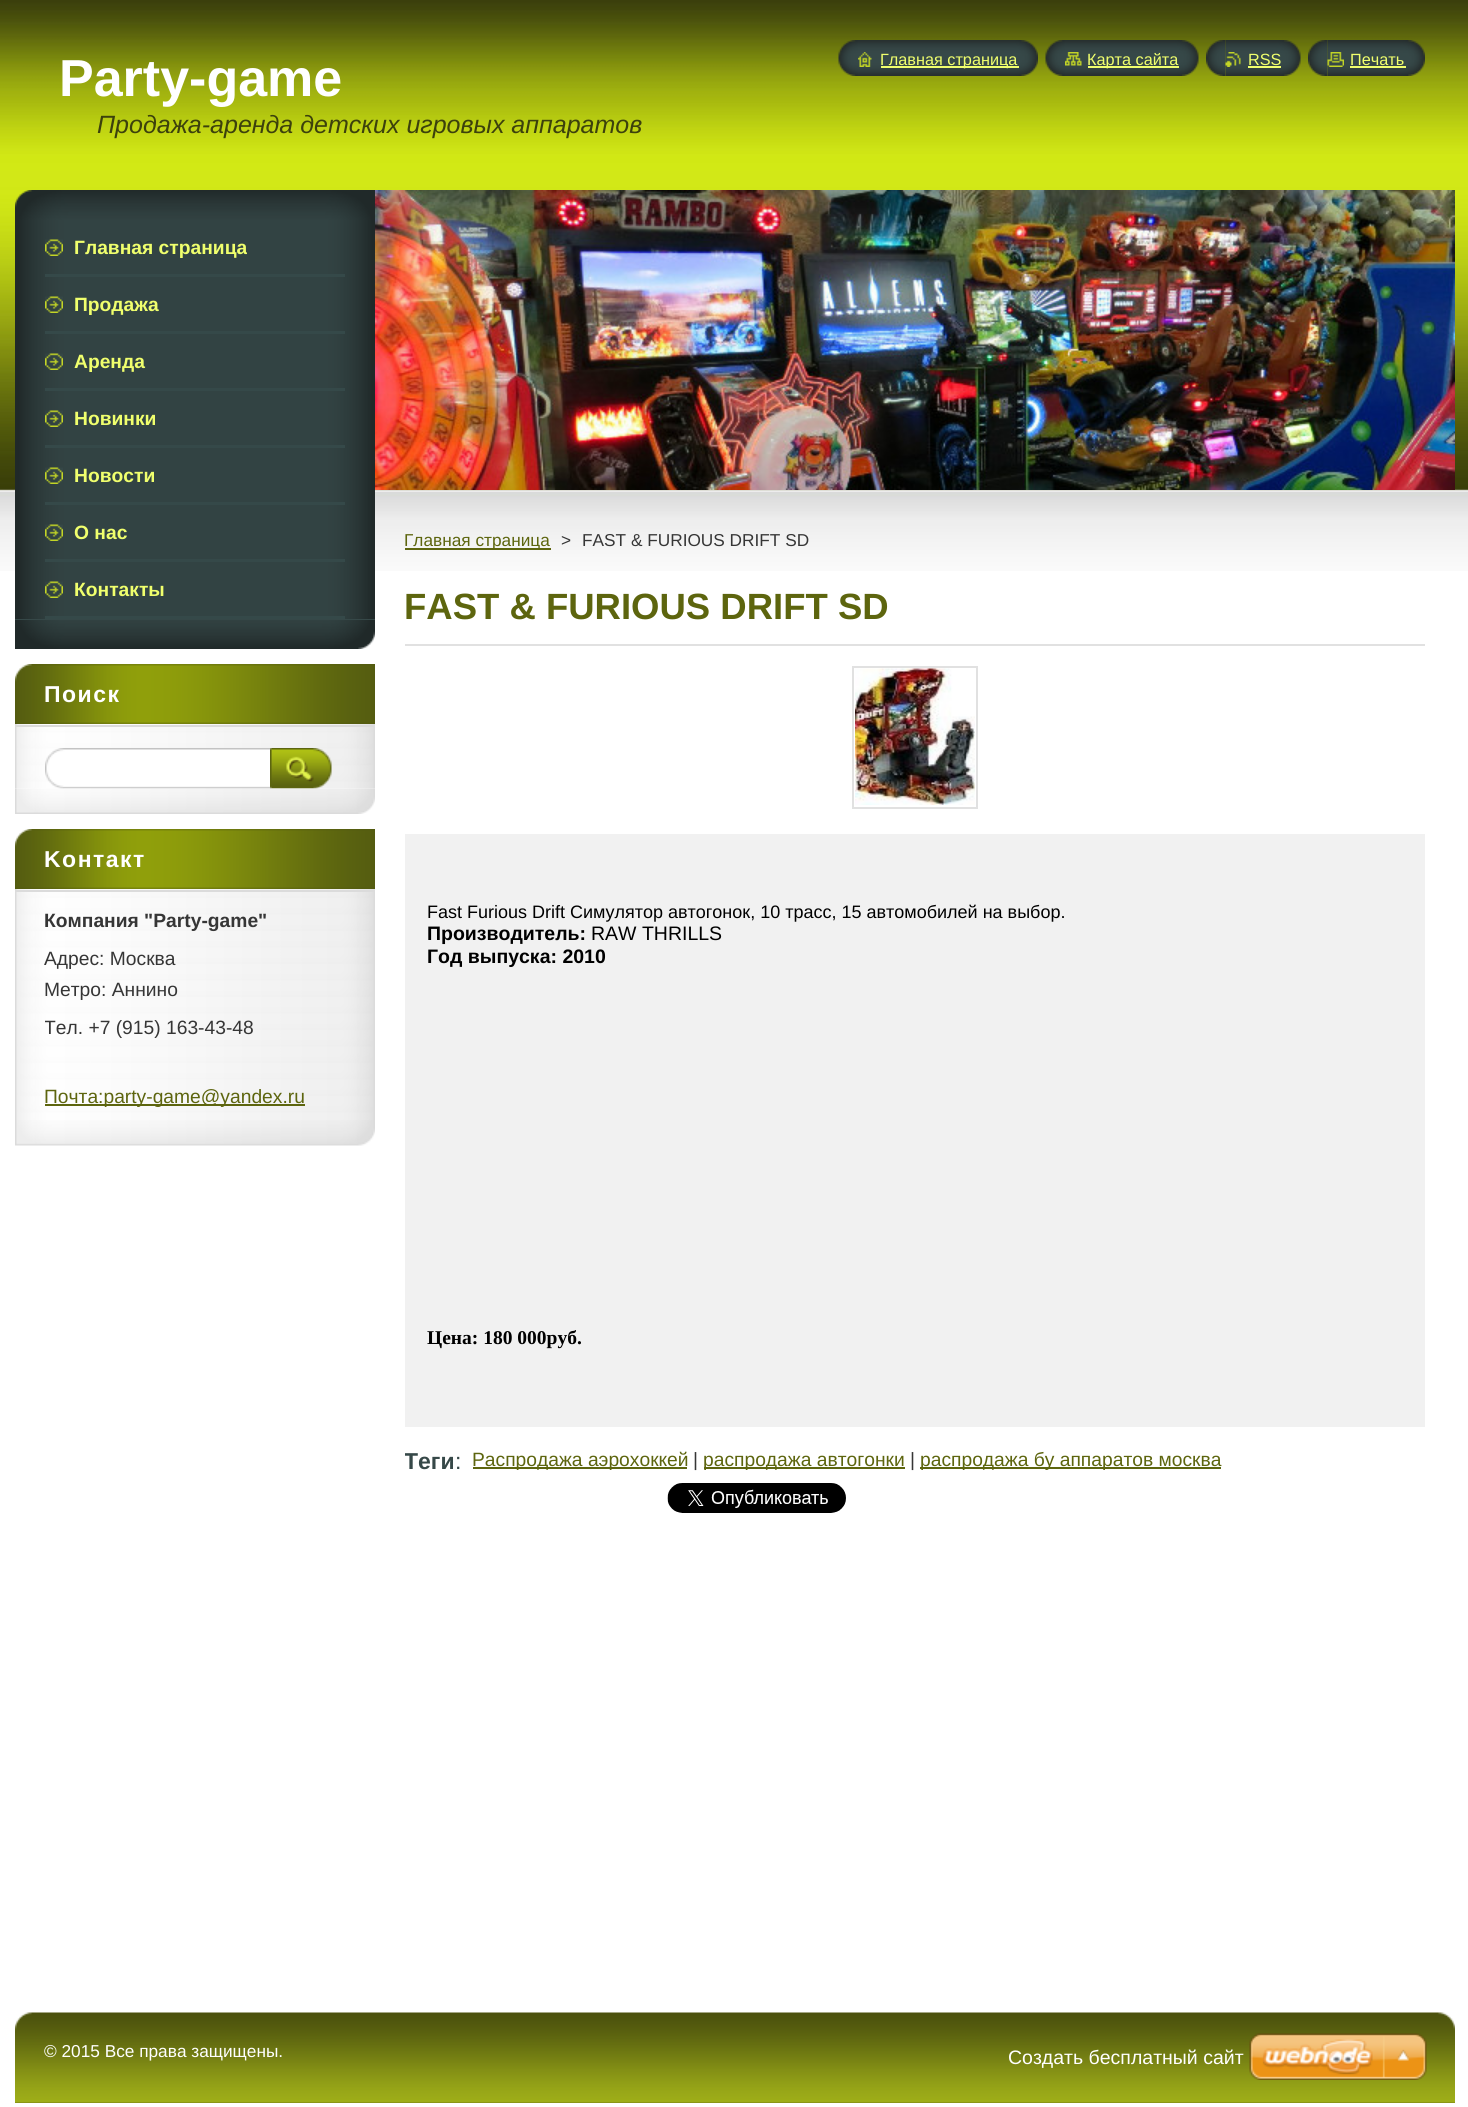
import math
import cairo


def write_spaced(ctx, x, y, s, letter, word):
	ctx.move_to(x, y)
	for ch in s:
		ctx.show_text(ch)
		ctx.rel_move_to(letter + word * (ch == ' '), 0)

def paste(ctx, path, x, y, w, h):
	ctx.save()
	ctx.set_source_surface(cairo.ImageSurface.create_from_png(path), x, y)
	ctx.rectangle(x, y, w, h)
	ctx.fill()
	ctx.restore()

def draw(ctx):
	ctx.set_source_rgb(1, 1, 1)
	ctx.paint()
	paste(ctx, 'media/1.png', 0, 0, 1468, 571)
	ctx.select_font_face('Liberation Sans', cairo.FONT_SLANT_NORMAL, cairo.FONT_WEIGHT_BOLD)
	ctx.set_font_size(52)
	ctx.set_source_rgb(1, 1, 1)
	ctx.move_to(59, 96)
	ctx.show_text('Party-game')
	ctx.select_font_face('Liberation Sans', cairo.FONT_SLANT_ITALIC)
	ctx.set_font_size(25)
	ctx.set_source_rgb(0.235, 0.255, 0.047)
	ctx.move_to(97, 133)
	ctx.show_text('Продажа-аренда детских игровых аппаратов')
	paste(ctx, 'media/2.png', 838, 40, 20, 36)
	paste(ctx, 'media/3.png', 858, 40, 180, 36)
	paste(ctx, 'media/4.png', 858, 52, 14, 15)
	ctx.set_source_rgb(0.941, 1, 0.427)
	ctx.rectangle(881, 66, 138, 2)
	ctx.fill()
	ctx.select_font_face('Liberation Sans')
	ctx.set_font_size(16.25)
	ctx.move_to(880, 65)
	ctx.show_text('Главная страница')
	paste(ctx, 'media/5.png', 1045, 40, 20, 36)
	paste(ctx, 'media/6.png', 1065, 40, 134, 36)
	paste(ctx, 'media/7.png', 1065, 52, 17, 14)
	ctx.rectangle(1088, 66, 91, 2)
	ctx.fill()
	ctx.move_to(1087, 65)
	ctx.show_text('Карта сайта')
	paste(ctx, 'media/8.png', 1206, 40, 20, 36)
	paste(ctx, 'media/9.png', 1225, 40, 76, 36)
	paste(ctx, 'media/10.png', 1225, 52, 16, 15)
	ctx.move_to(1248, 65)
	ctx.show_text('RSS')
	ctx.rectangle(1248, 66, 33, 2)
	ctx.fill()
	paste(ctx, 'media/11.png', 1308, 40, 20, 36)
	paste(ctx, 'media/12.png', 1327, 40, 98, 36)
	paste(ctx, 'media/13.png', 1327, 52, 17, 15)
	ctx.move_to(1350, 65)
	ctx.show_text('Печать')
	ctx.rectangle(1350, 66, 56, 2)
	ctx.fill()
	paste(ctx, 'media/14.png', 15, 190, 360, 30)
	paste(ctx, 'media/15.png', 15, 620, 360, 29)
	ctx.set_source_rgb(0.212, 0.282, 0.282)
	ctx.rectangle(15, 619, 360, 1)
	ctx.fill()
	paste(ctx, 'media/16.png', 15, 220, 360, 399)
	ctx.set_source_rgb(0.208, 0.286, 0.286)
	ctx.rectangle(45, 274, 300, 3)
	ctx.fill()
	paste(ctx, 'media/17.png', 45, 239, 18, 17)
	ctx.select_font_face('Liberation Sans', cairo.FONT_SLANT_NORMAL, cairo.FONT_WEIGHT_BOLD)
	ctx.set_font_size(19.25)
	ctx.set_source_rgb(0.941, 1, 0.427)
	ctx.move_to(74, 254)
	ctx.show_text('Главная страница')
	ctx.set_source_rgb(0.208, 0.286, 0.286)
	ctx.rectangle(45, 331, 300, 3)
	ctx.fill()
	paste(ctx, 'media/17.png', 45, 296, 18, 17)
	ctx.set_source_rgb(0.941, 1, 0.427)
	ctx.move_to(74, 311)
	ctx.show_text('Продажа')
	ctx.set_source_rgb(0.208, 0.286, 0.286)
	ctx.rectangle(45, 388, 300, 3)
	ctx.fill()
	paste(ctx, 'media/17.png', 45, 353, 18, 17)
	ctx.set_source_rgb(0.941, 1, 0.427)
	ctx.move_to(74, 368)
	ctx.show_text('Аренда')
	ctx.set_source_rgb(0.208, 0.286, 0.286)
	ctx.rectangle(45, 445, 300, 3)
	ctx.fill()
	paste(ctx, 'media/17.png', 45, 410, 18, 17)
	ctx.set_source_rgb(0.941, 1, 0.427)
	ctx.move_to(74, 425)
	ctx.show_text('Новинки')
	ctx.set_source_rgb(0.208, 0.286, 0.286)
	ctx.rectangle(45, 502, 300, 3)
	ctx.fill()
	paste(ctx, 'media/17.png', 45, 467, 18, 17)
	ctx.set_source_rgb(0.941, 1, 0.427)
	ctx.move_to(74, 482)
	ctx.show_text('Новости')
	ctx.set_source_rgb(0.208, 0.286, 0.286)
	ctx.rectangle(45, 559, 300, 3)
	ctx.fill()
	paste(ctx, 'media/17.png', 45, 524, 18, 17)
	ctx.set_source_rgb(0.941, 1, 0.427)
	ctx.move_to(74, 539)
	ctx.show_text('О нас')
	ctx.set_source_rgb(0.208, 0.286, 0.286)
	ctx.rectangle(45, 616, 300, 3)
	ctx.fill()
	paste(ctx, 'media/17.png', 45, 581, 18, 17)
	ctx.set_source_rgb(0.941, 1, 0.427)
	ctx.move_to(74, 596)
	ctx.show_text('Контакты')
	paste(ctx, 'media/18.png', 15, 788, 360, 26)
	paste(ctx, 'media/19.png', 15, 664, 360, 60)
	ctx.set_font_size(23)
	ctx.set_source_rgb(1, 1, 1)
	write_spaced(ctx, 44, 702, 'Поиск', 1.5, 0)
	paste(ctx, 'media/20.png', 15, 724, 360, 65)
	ctx.set_source_rgb(0.859, 0.859, 0.859)
	ctx.rectangle(15, 725, 360, 2)
	ctx.fill()
	paste(ctx, 'media/21.png', 45, 748, 227, 41)
	paste(ctx, 'media/22.png', 270, 748, 62, 41)
	paste(ctx, 'media/23.png', 15, 1120, 360, 26)
	paste(ctx, 'media/19.png', 15, 829, 360, 60)
	ctx.set_source_rgb(1, 1, 1)
	write_spaced(ctx, 44, 867, 'Koнтакт', 1.5, 0)
	paste(ctx, 'media/24.png', 15, 889, 360, 231)
	ctx.set_source_rgb(0.859, 0.859, 0.859)
	ctx.rectangle(15, 890, 360, 2)
	ctx.fill()
	ctx.set_font_size(19.25)
	ctx.set_source_rgb(0.212, 0.212, 0.212)
	ctx.move_to(44, 927)
	ctx.show_text('Компания "Party-game"')
	ctx.select_font_face('Liberation Sans')
	ctx.move_to(44, 965)
	ctx.show_text('Адрес: Москва')
	ctx.move_to(44, 996)
	ctx.show_text('Метро: Аннино')
	ctx.save()
	ctx.rectangle(45, 891, 300, 230)
	ctx.clip()
	ctx.move_to(44, 1034)
	ctx.show_text('Тел. +7 (915) 163-43-48')
	ctx.restore()
	ctx.set_source_rgb(0.365, 0.396, 0.055)
	ctx.rectangle(45, 1104, 260, 2)
	ctx.fill()
	ctx.move_to(44, 1103)
	ctx.show_text('Почта:party-game@yandex.ru')
	paste(ctx, 'media/25.png', 375, 190, 1080, 300)
	ctx.rectangle(405, 548, 146, 2)
	ctx.fill()
	ctx.set_font_size(17.25)
	ctx.move_to(404, 546)
	ctx.show_text('Главная страница')
	ctx.set_source_rgb(0.212, 0.212, 0.212)
	ctx.move_to(561, 546)
	ctx.show_text('>')
	ctx.move_to(582, 546)
	ctx.show_text('FAST & FURIOUS DRIFT SD')
	ctx.set_source_rgb(0.882, 0.882, 0.882)
	ctx.rectangle(405, 644, 1020, 2)
	ctx.fill()
	ctx.select_font_face('Liberation Sans', cairo.FONT_SLANT_NORMAL, cairo.FONT_WEIGHT_BOLD)
	ctx.set_font_size(36.5)
	ctx.set_source_rgb(0.365, 0.396, 0.055)
	ctx.move_to(404, 619)
	ctx.show_text('FAST & FURIOUS DRIFT SD')
	ctx.rectangle(853, 667, 124, 141)
	ctx.set_source_rgb(0.882, 0.882, 0.882)
	ctx.stroke()
	paste(ctx, 'media/26.png', 855, 668, 120, 137)
	ctx.set_source_rgb(0.945, 0.945, 0.945)
	ctx.rectangle(405, 834, 1020, 593)
	ctx.fill()
	ctx.select_font_face('Liberation Sans')
	ctx.set_font_size(18)
	ctx.set_source_rgb(0, 0, 0)
	ctx.move_to(427, 918)
	ctx.show_text('Fast Furious Drift Симулятор автогонок, 10 трасс, 15 автомобилей на выбор.')
	ctx.select_font_face('Liberation Sans', cairo.FONT_SLANT_NORMAL, cairo.FONT_WEIGHT_BOLD)
	ctx.set_font_size(19.5)
	ctx.move_to(427, 940)
	ctx.show_text('Производитель:')
	ctx.select_font_face('Liberation Sans')
	ctx.move_to(591, 940)
	ctx.show_text('RAW THRILLS')
	ctx.select_font_face('Liberation Sans', cairo.FONT_SLANT_NORMAL, cairo.FONT_WEIGHT_BOLD)
	ctx.move_to(427, 963)
	ctx.show_text('Год выпуска: 2010')
	ctx.select_font_face('Liberation Serif', cairo.FONT_SLANT_NORMAL, cairo.FONT_WEIGHT_BOLD)
	ctx.move_to(427, 1344)
	ctx.show_text('Цена: 180 000руб.')
	ctx.save()
	ctx.rectangle(405, 660, 1020, 860)
	ctx.clip()
	ctx.select_font_face('Liberation Sans', cairo.FONT_SLANT_NORMAL, cairo.FONT_WEIGHT_BOLD)
	ctx.set_font_size(23)
	ctx.set_source_rgb(0.212, 0.282, 0.282)
	ctx.move_to(404, 1469)
	ctx.show_text('Теги')
	ctx.restore()
	ctx.select_font_face('Liberation Sans')
	ctx.set_font_size(23)
	ctx.set_source_rgb(0.212, 0.282, 0.282)
	ctx.move_to(455, 1469)
	ctx.show_text(':')
	ctx.set_source_rgb(0.365, 0.396, 0.055)
	ctx.rectangle(473, 1467, 214, 2)
	ctx.fill()
	ctx.set_font_size(19.25)
	ctx.move_to(472, 1466)
	ctx.show_text('Распродажа аэрохоккей')
	ctx.set_source_rgb(0.212, 0.212, 0.212)
	ctx.move_to(693, 1466)
	ctx.show_text('|')
	ctx.set_source_rgb(0.365, 0.396, 0.055)
	ctx.rectangle(704, 1467, 201, 2)
	ctx.fill()
	ctx.move_to(703, 1466)
	ctx.show_text('распродажа автогонки')
	ctx.set_source_rgb(0.212, 0.212, 0.212)
	ctx.move_to(910, 1466)
	ctx.show_text('|')
	ctx.set_source_rgb(0.365, 0.396, 0.055)
	ctx.rectangle(920, 1467, 301, 2)
	ctx.fill()
	ctx.move_to(920, 1466)
	ctx.show_text('распродажа бу аппаратов москва')
	paste(ctx, 'media/27.png', 667, 1483, 179, 30)
	ctx.set_source_rgb(0.447, 0.49, 0.071)
	ctx.rectangle(15, 2102, 1440, 1)
	ctx.fill()
	paste(ctx, 'media/28.png', 15, 2012, 1440, 91)
	ctx.set_font_size(17.25)
	ctx.set_source_rgb(1, 1, 1)
	ctx.move_to(44, 2057)
	ctx.show_text('© 2015 Все права защищены.')
	ctx.set_font_size(19.5)
	ctx.move_to(1008, 2064)
	ctx.show_text('Создать бесплатный сайт')
	paste(ctx, 'media/29.png', 1249, 2033, 178, 47)


surface = cairo.ImageSurface(cairo.FORMAT_RGB24, 1468, 2107)
ctx = cairo.Context(surface)
options = cairo.FontOptions()
options.set_hint_metrics(cairo.HINT_METRICS_OFF)
options.set_hint_style(cairo.HINT_STYLE_NONE)
ctx.set_font_options(options)
ctx.set_miter_limit(4)
draw(ctx)
surface.write_to_png('image.png')
